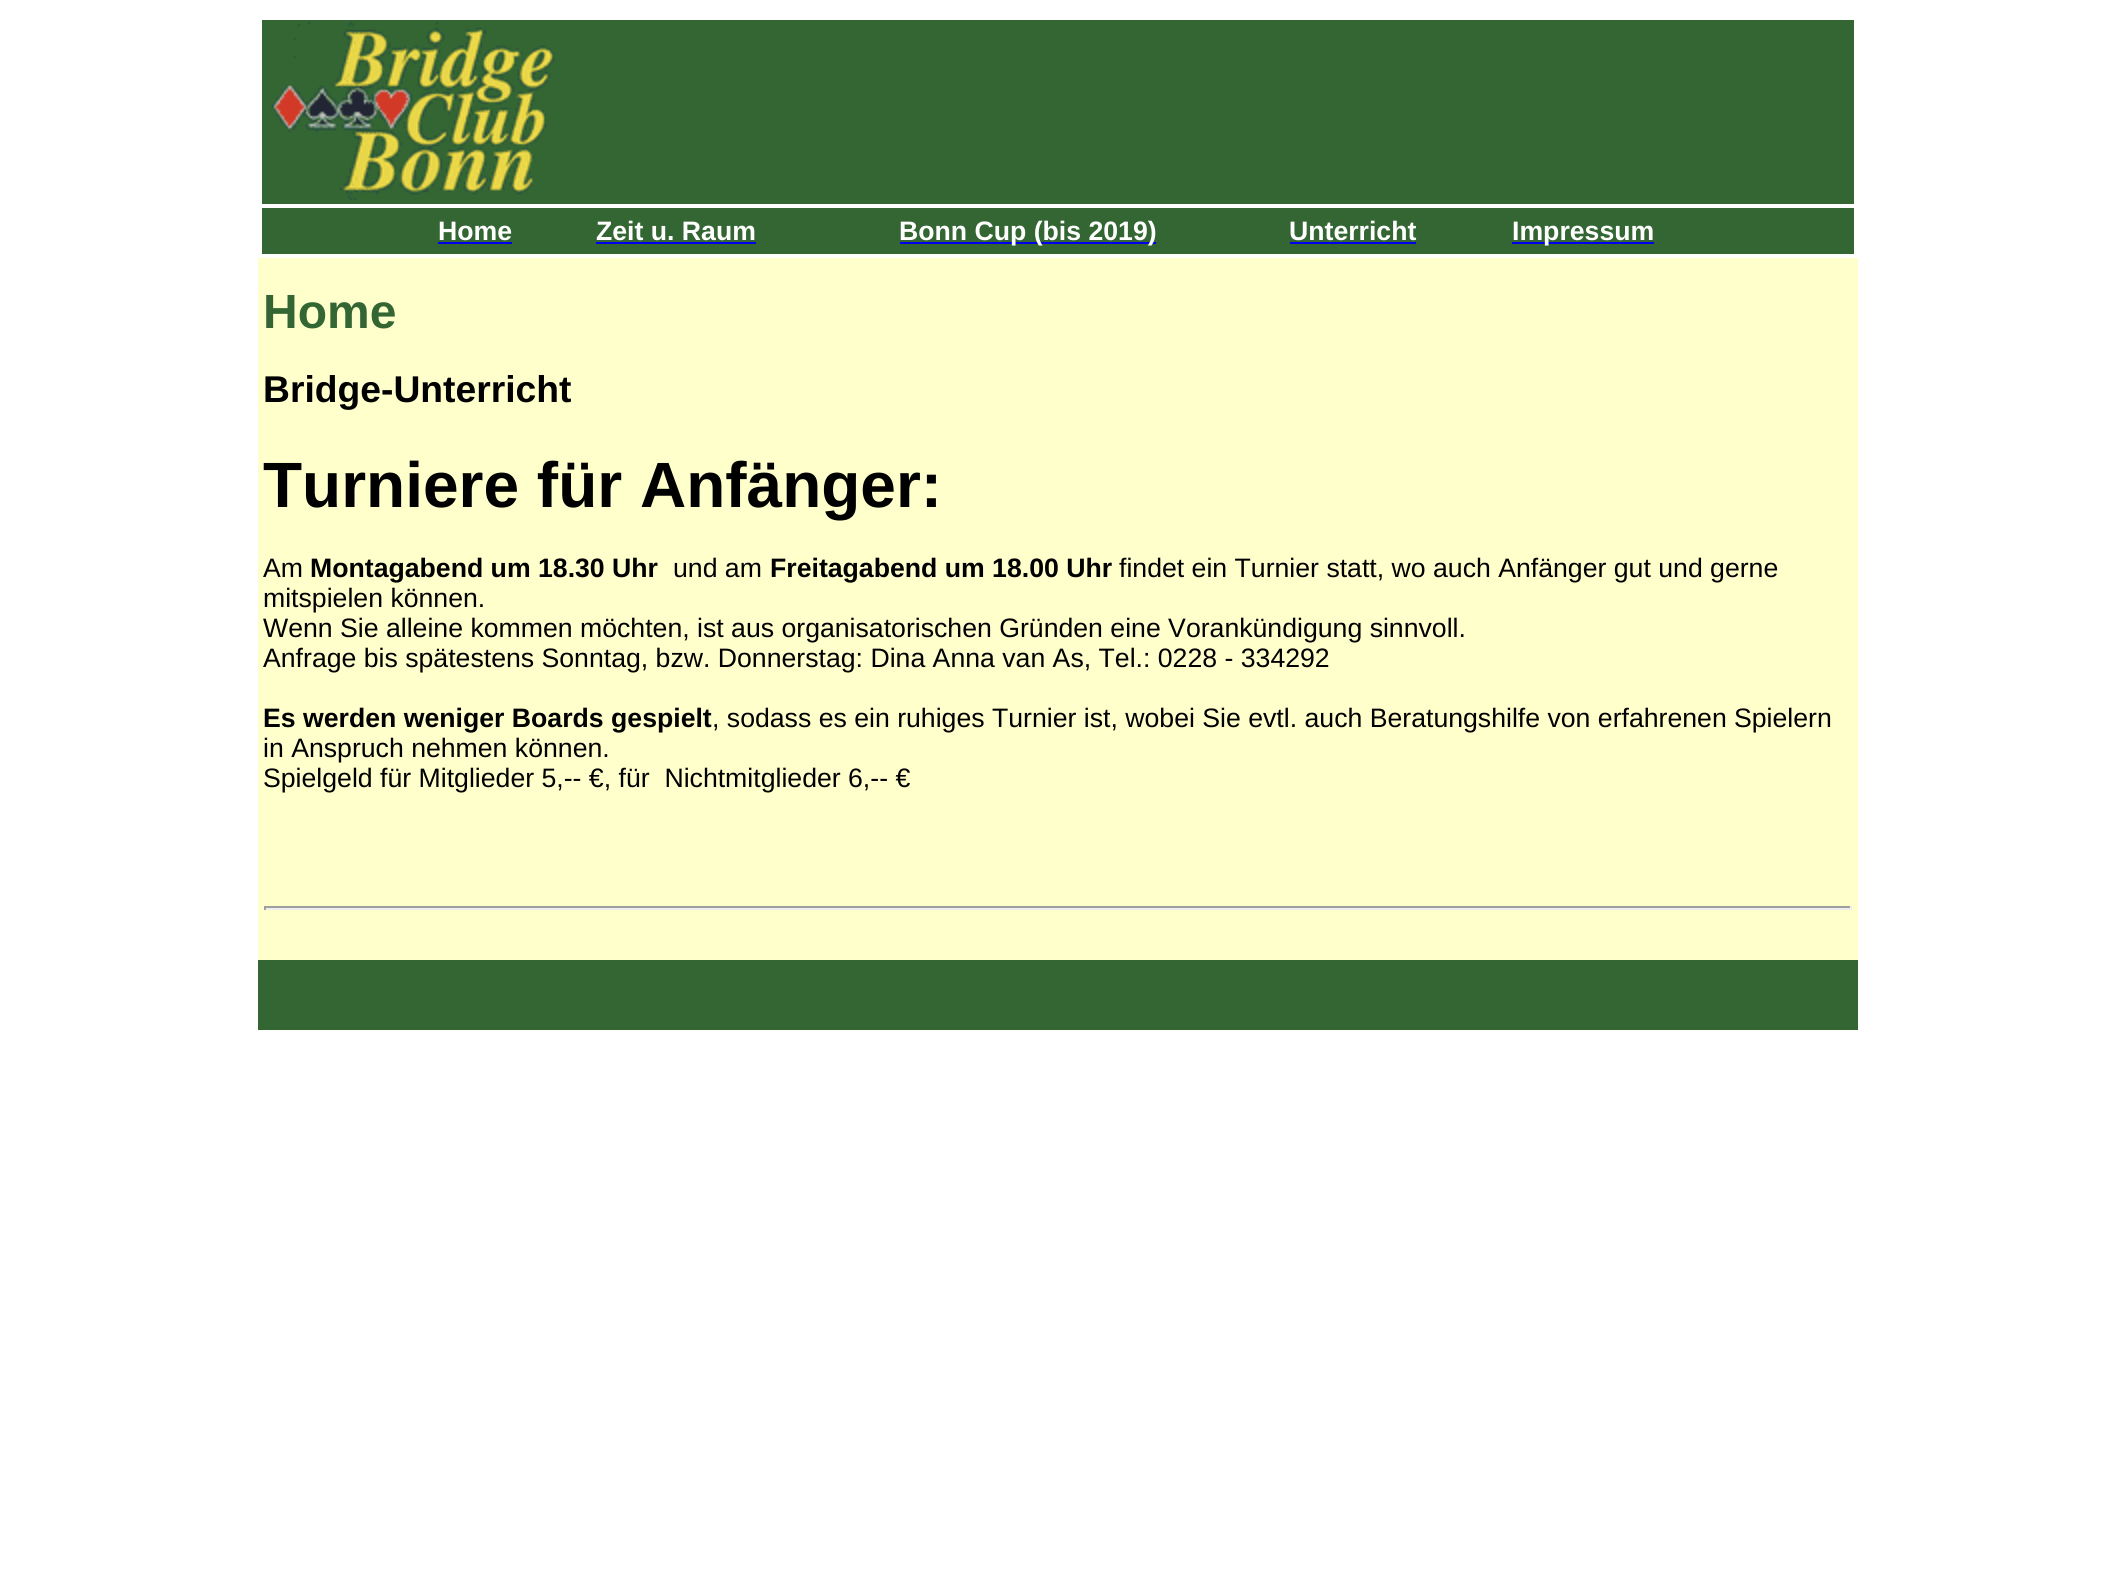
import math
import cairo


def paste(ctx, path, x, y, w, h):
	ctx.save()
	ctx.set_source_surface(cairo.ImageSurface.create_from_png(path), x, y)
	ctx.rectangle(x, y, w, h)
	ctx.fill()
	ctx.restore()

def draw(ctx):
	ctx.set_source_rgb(1, 1, 1)
	ctx.paint()
	ctx.set_source_rgb(0.2, 0.4, 0.2)
	ctx.rectangle(262, 20, 1592, 184)
	ctx.fill()
	paste(ctx, 'media/1.png', 271, 22, 284, 178)
	ctx.rectangle(262, 208, 1592, 46)
	ctx.fill()
	ctx.select_font_face('Liberation Sans', cairo.FONT_SLANT_NORMAL, cairo.FONT_WEIGHT_BOLD)
	ctx.set_font_size(26.65)
	ctx.set_source_rgb(1, 1, 1)
	ctx.move_to(438, 240)
	ctx.show_text('Home')
	ctx.set_source_rgb(0, 0, 0.933)
	ctx.rectangle(438, 242, 74, 2)
	ctx.fill()
	ctx.set_source_rgb(1, 1, 1)
	ctx.move_to(596, 240)
	ctx.show_text('Zeit u. Raum')
	ctx.set_source_rgb(0, 0, 0.933)
	ctx.rectangle(596, 242, 160, 2)
	ctx.fill()
	ctx.rectangle(900, 242, 256, 2)
	ctx.fill()
	ctx.set_source_rgb(1, 1, 1)
	ctx.move_to(899, 240)
	ctx.show_text('Bonn Cup (bis 2019)')
	ctx.move_to(1289, 240)
	ctx.show_text('Unterricht')
	ctx.set_source_rgb(0, 0, 0.933)
	ctx.rectangle(1290, 242, 126, 2)
	ctx.fill()
	ctx.rectangle(1512, 242, 142, 2)
	ctx.fill()
	ctx.set_source_rgb(1, 1, 1)
	ctx.move_to(1512, 240)
	ctx.show_text('Impressum')
	ctx.set_source_rgb(1, 1, 0.8)
	ctx.rectangle(258, 258, 1600, 702)
	ctx.fill()
	ctx.set_font_size(48)
	ctx.set_source_rgb(0.2, 0.4, 0.2)
	ctx.move_to(263, 328)
	ctx.show_text('Home')
	ctx.set_font_size(37.25)
	ctx.set_source_rgb(0, 0, 0)
	ctx.move_to(263, 402)
	ctx.show_text('Bridge-Unterricht')
	ctx.set_font_size(64)
	ctx.move_to(263, 507)
	ctx.show_text('Turniere für Anfänger:')
	ctx.select_font_face('Liberation Sans')
	ctx.set_font_size(26.65)
	ctx.move_to(263, 577)
	ctx.show_text('Am')
	ctx.select_font_face('Liberation Sans', cairo.FONT_SLANT_NORMAL, cairo.FONT_WEIGHT_BOLD)
	ctx.move_to(310, 577)
	ctx.show_text('Montagabend um 18.30 Uhr')
	ctx.select_font_face('Liberation Sans')
	ctx.move_to(673, 577)
	ctx.show_text('und am')
	ctx.select_font_face('Liberation Sans', cairo.FONT_SLANT_NORMAL, cairo.FONT_WEIGHT_BOLD)
	ctx.move_to(770, 577)
	ctx.show_text('Freitagabend um 18.00 Uhr')
	ctx.select_font_face('Liberation Sans')
	for x, y, s in [
		(1119, 577, 'findet ein Turnier statt, wo auch Anfänger gut und gerne'),
		(263, 607, 'mitspielen können.'),
		(263, 637, 'Wenn Sie alleine kommen möchten, ist aus organisatorischen Gründen eine Vorankündigung sinnvoll.'),
		(263, 667, 'Anfrage bis spätestens Sonntag, bzw. Donnerstag: Dina Anna van As, Tel.: 0228 - 334292'),
	]:
		ctx.move_to(x, y)
		ctx.show_text(s)
	ctx.select_font_face('Liberation Sans', cairo.FONT_SLANT_NORMAL, cairo.FONT_WEIGHT_BOLD)
	ctx.move_to(263, 727)
	ctx.show_text('Es werden weniger Boards gespielt')
	ctx.select_font_face('Liberation Sans')
	for x, y, s in [
		(712, 727, ', sodass es ein ruhiges Turnier ist, wobei Sie evtl. auch Beratungshilfe von erfahrenen'),
		(1734, 727, 'Spielern'),
		(263, 757, 'in Anspruch nehmen können.'),
		(263, 787, 'Spielgeld für Mitglieder 5,-- €, für  Nichtmitglieder 6,-- €'),
	]:
		ctx.move_to(x, y)
		ctx.show_text(s)
	ctx.set_source_rgb(0.624, 0.624, 0.624)
	ctx.rectangle(264, 906, 1588, 2)
	ctx.fill()
	ctx.set_source_rgb(0.933, 0.933, 0.933)
	ctx.rectangle(1850, 906, 2, 4)
	ctx.rectangle(264, 908, 1588, 2)
	ctx.fill()
	ctx.set_source_rgb(0.624, 0.624, 0.624)
	ctx.rectangle(264, 906, 2, 4)
	ctx.fill()
	ctx.set_source_rgb(0.2, 0.4, 0.2)
	ctx.rectangle(258, 960, 1600, 70)
	ctx.fill()


surface = cairo.ImageSurface(cairo.FORMAT_RGB24, 2113, 1582)
ctx = cairo.Context(surface)
options = cairo.FontOptions()
options.set_hint_metrics(cairo.HINT_METRICS_OFF)
options.set_hint_style(cairo.HINT_STYLE_NONE)
ctx.set_font_options(options)
ctx.set_miter_limit(4)
draw(ctx)
surface.write_to_png('image.png')
